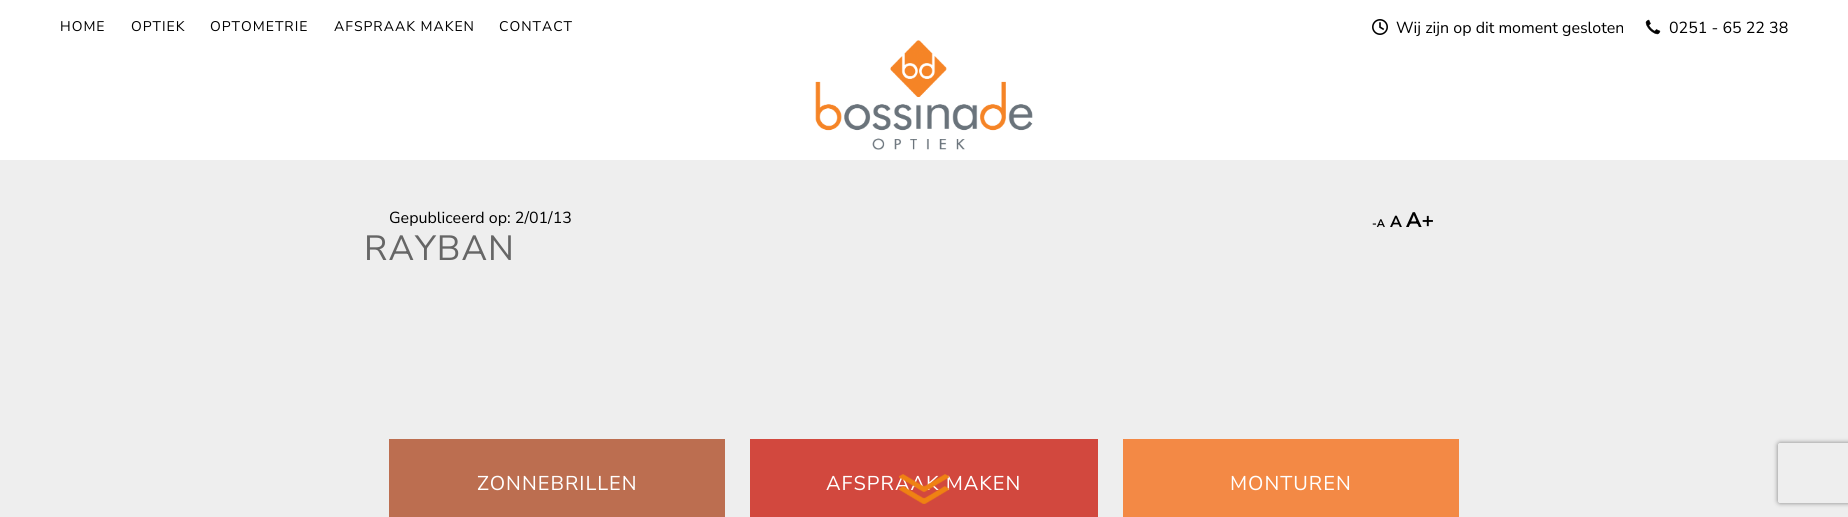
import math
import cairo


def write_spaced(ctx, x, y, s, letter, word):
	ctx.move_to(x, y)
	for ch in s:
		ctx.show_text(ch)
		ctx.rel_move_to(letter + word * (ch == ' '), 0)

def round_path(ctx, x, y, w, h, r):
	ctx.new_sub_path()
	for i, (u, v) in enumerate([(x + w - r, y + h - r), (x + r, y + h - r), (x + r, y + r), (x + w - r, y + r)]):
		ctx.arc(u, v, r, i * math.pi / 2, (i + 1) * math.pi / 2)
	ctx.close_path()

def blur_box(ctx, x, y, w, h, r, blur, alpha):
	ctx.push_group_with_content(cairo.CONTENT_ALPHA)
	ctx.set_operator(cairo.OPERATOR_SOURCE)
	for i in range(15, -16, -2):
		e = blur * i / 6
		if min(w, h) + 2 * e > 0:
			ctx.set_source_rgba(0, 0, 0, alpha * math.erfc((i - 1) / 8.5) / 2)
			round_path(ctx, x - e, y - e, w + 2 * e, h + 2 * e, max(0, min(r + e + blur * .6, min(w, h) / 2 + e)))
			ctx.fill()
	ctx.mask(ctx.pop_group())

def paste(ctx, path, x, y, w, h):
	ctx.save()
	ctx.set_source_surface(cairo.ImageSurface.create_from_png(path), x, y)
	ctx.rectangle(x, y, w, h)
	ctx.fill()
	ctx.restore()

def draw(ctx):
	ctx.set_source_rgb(0.933, 0.933, 0.933)
	ctx.paint()
	ctx.set_source_rgb(1, 1, 1)
	ctx.rectangle(0, 0, 1848, 160)
	ctx.fill()
	ctx.select_font_face('Nunito Sans ExtraLight')
	ctx.set_font_size(14)
	ctx.set_source_rgb(0, 0, 0)
	for x, y, s in [
		(60, 31, 'HOME'),
		(131, 31, 'OPTIEK'),
		(210, 31, 'OPTOMETRIE'),
		(334, 31, 'AFSPRAAK MAKEN'),
		(499, 31, 'CONTACT'),
	]:
		write_spaced(ctx, x, y, s, 1, 0)
	paste(ctx, 'media/1.png', 1372, 19, 16, 16)
	ctx.set_font_size(16)
	ctx.move_to(1396, 33)
	ctx.show_text('Wij zijn op dit moment gesloten')
	paste(ctx, 'media/2.png', 1645, 19, 16, 16)
	ctx.move_to(1669, 33)
	ctx.show_text('0251 - 65 22 38')
	paste(ctx, 'media/3.png', 815, 40, 218, 110)
	ctx.move_to(389, 223)
	ctx.show_text('Gepubliceerd op: 2/01/13')
	ctx.select_font_face('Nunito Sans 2 ExtraLight')
	ctx.set_font_size(11)
	ctx.move_to(1372, 227)
	ctx.show_text('-A')
	ctx.set_font_size(16)
	ctx.move_to(1390, 227)
	ctx.show_text('A')
	ctx.set_font_size(21)
	ctx.move_to(1406, 227)
	ctx.show_text('A+')
	ctx.select_font_face('Nunito Sans ExtraLight')
	ctx.set_font_size(35)
	ctx.set_source_rgb(0.4, 0.4, 0.4)
	write_spaced(ctx, 364, 260, 'RAYBAN', 1, 0)
	ctx.set_source_rgb(0.737, 0.431, 0.314)
	ctx.rectangle(389, 439, 336, 78)
	ctx.fill()
	ctx.set_font_size(20)
	ctx.set_source_rgb(1, 1, 1)
	write_spaced(ctx, 477, 490, 'ZONNEBRILLEN', 1, 0)
	ctx.set_source_rgb(0.824, 0.282, 0.243)
	ctx.rectangle(750, 439, 348, 78)
	ctx.fill()
	ctx.set_source_rgb(1, 1, 1)
	write_spaced(ctx, 826, 490, 'AFSPRAAK MAKEN', 1, 0)
	ctx.set_source_rgb(0.953, 0.537, 0.271)
	ctx.rectangle(1123, 439, 336, 78)
	ctx.fill()
	ctx.set_source_rgb(1, 1, 1)
	write_spaced(ctx, 1230, 490, 'MONTUREN', 1, 0)
	ctx.save()
	ctx.set_fill_rule(cairo.FILL_RULE_EVEN_ODD)
	ctx.new_path()
	ctx.move_to(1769, 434)
	ctx.line_to(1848, 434)
	ctx.line_to(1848, 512)
	ctx.line_to(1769, 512)
	ctx.close_path()
	ctx.move_to(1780, 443)
	ctx.line_to(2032, 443)
	ctx.curve_to(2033, 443, 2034, 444, 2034, 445)
	ctx.line_to(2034, 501)
	ctx.curve_to(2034, 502, 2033, 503, 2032, 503)
	ctx.line_to(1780, 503)
	ctx.curve_to(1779, 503, 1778, 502, 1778, 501)
	ctx.line_to(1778, 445)
	ctx.curve_to(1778, 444, 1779, 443, 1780, 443)
	ctx.close_path()
	ctx.clip()
	ctx.set_source_rgb(0.502, 0.502, 0.502)
	blur_box(ctx, 1778, 443, 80, 60, 2, 2.5, 1)
	ctx.restore()
	paste(ctx, 'media/4.png', 899, 474, 50, 30)


surface = cairo.ImageSurface(cairo.FORMAT_RGB24, 1848, 517)
ctx = cairo.Context(surface)
options = cairo.FontOptions()
options.set_hint_metrics(cairo.HINT_METRICS_OFF)
options.set_hint_style(cairo.HINT_STYLE_NONE)
ctx.set_font_options(options)
ctx.set_miter_limit(4)
draw(ctx)
surface.write_to_png('image.png')
